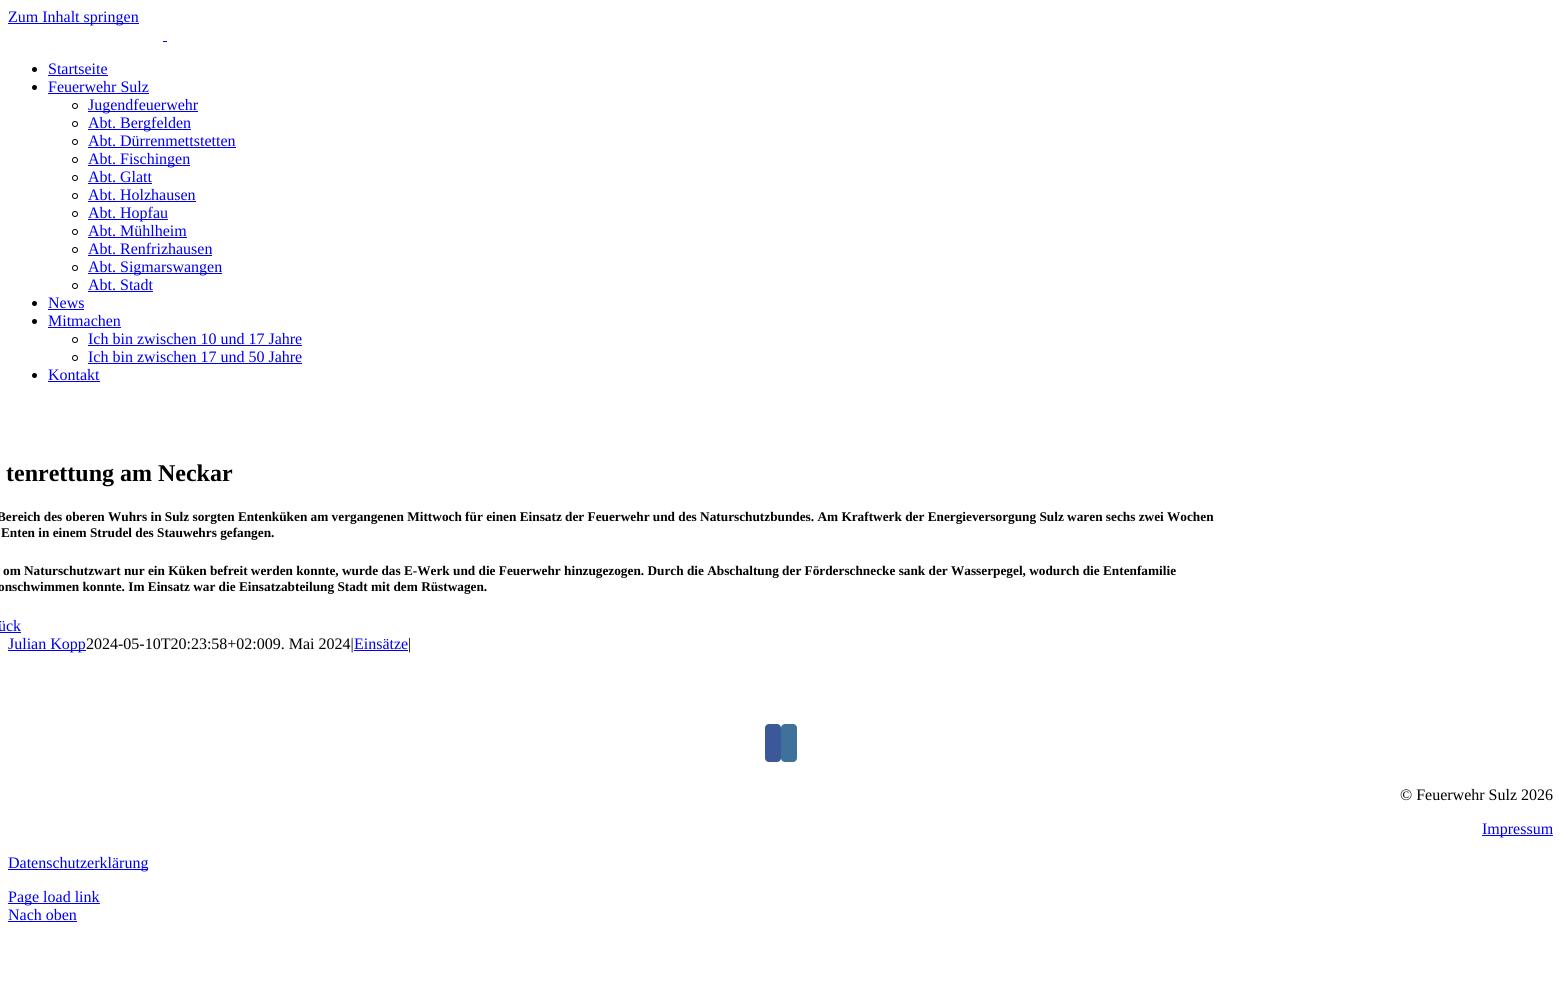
import math
import cairo


def round_path(ctx, x, y, w, h, r):
	ctx.new_sub_path()
	for i, (u, v) in enumerate([(x + w - r, y + h - r), (x + r, y + h - r), (x + r, y + r), (x + w - r, y + r)]):
		ctx.arc(u, v, r, i * math.pi / 2, (i + 1) * math.pi / 2)
	ctx.close_path()

def draw(ctx):
	ctx.set_source_rgb(1, 1, 1)
	ctx.paint()
	ctx.set_source_rgb(0, 0, 0.933)
	ctx.rectangle(8, 23, 131, 1)
	ctx.fill()
	ctx.select_font_face('Liberation Serif')
	ctx.set_font_size(16)
	ctx.move_to(8, 22)
	ctx.show_text('Zum Inhalt springen')
	ctx.rectangle(163, 41, 4, 1)
	ctx.fill()
	ctx.set_source_rgb(0, 0, 0)
	ctx.arc(34.5, 69.5, 2.5, 0, 2 * math.pi)
	ctx.fill()
	ctx.set_source_rgb(0, 0, 0.933)
	ctx.move_to(48, 74)
	ctx.show_text('Startseite')
	ctx.rectangle(48, 75, 60, 1)
	ctx.fill()
	ctx.set_source_rgb(0, 0, 0)
	ctx.arc(34.5, 87.5, 2.5, 0, 2 * math.pi)
	ctx.fill()
	ctx.set_source_rgb(0, 0, 0.933)
	ctx.move_to(48, 92)
	ctx.show_text('Feuerwehr Sulz')
	ctx.rectangle(48, 93, 101, 1)
	ctx.fill()
	ctx.arc(75, 106, 2.5, 0, 2 * math.pi)
	ctx.set_source_rgb(0, 0, 0)
	ctx.set_line_width(1)
	ctx.stroke()
	ctx.set_source_rgb(0, 0, 0.933)
	ctx.rectangle(88, 111, 110, 1)
	ctx.fill()
	ctx.move_to(88, 110)
	ctx.show_text('Jugendfeuerwehr')
	ctx.new_path()
	ctx.arc(75, 124, 2.5, 0, 2 * math.pi)
	ctx.set_source_rgb(0, 0, 0)
	ctx.stroke()
	ctx.set_source_rgb(0, 0, 0.933)
	ctx.rectangle(88, 129, 103, 1)
	ctx.fill()
	ctx.move_to(88, 128)
	ctx.show_text('Abt. Bergfelden')
	ctx.new_path()
	ctx.arc(75, 142, 2.5, 0, 2 * math.pi)
	ctx.set_source_rgb(0, 0, 0)
	ctx.stroke()
	ctx.set_source_rgb(0, 0, 0.933)
	ctx.move_to(88, 146)
	ctx.show_text('Abt. Dürrenmettstetten')
	ctx.rectangle(88, 147, 148, 1)
	ctx.fill()
	ctx.arc(75, 160, 2.5, 0, 2 * math.pi)
	ctx.set_source_rgb(0, 0, 0)
	ctx.stroke()
	ctx.set_source_rgb(0, 0, 0.933)
	ctx.rectangle(88, 165, 102, 1)
	ctx.fill()
	ctx.move_to(88, 164)
	ctx.show_text('Abt. Fischingen')
	ctx.new_path()
	ctx.arc(75, 178, 2.5, 0, 2 * math.pi)
	ctx.set_source_rgb(0, 0, 0)
	ctx.stroke()
	ctx.set_source_rgb(0, 0, 0.933)
	ctx.move_to(88, 182)
	ctx.show_text('Abt. Glatt')
	ctx.rectangle(88, 183, 64, 1)
	ctx.fill()
	ctx.arc(75, 196, 2.5, 0, 2 * math.pi)
	ctx.set_source_rgb(0, 0, 0)
	ctx.stroke()
	ctx.set_source_rgb(0, 0, 0.933)
	ctx.move_to(88, 200)
	ctx.show_text('Abt. Holzhausen')
	ctx.rectangle(88, 201, 108, 1)
	ctx.fill()
	ctx.arc(75, 214, 2.5, 0, 2 * math.pi)
	ctx.set_source_rgb(0, 0, 0)
	ctx.stroke()
	ctx.set_source_rgb(0, 0, 0.933)
	ctx.rectangle(88, 219, 80, 1)
	ctx.fill()
	ctx.move_to(88, 218)
	ctx.show_text('Abt. Hopfau')
	ctx.new_path()
	ctx.arc(75, 232, 2.5, 0, 2 * math.pi)
	ctx.set_source_rgb(0, 0, 0)
	ctx.stroke()
	ctx.set_source_rgb(0, 0, 0.933)
	ctx.move_to(88, 236)
	ctx.show_text('Abt. Mühlheim')
	ctx.rectangle(88, 237, 99, 1)
	ctx.fill()
	ctx.arc(75, 250, 2.5, 0, 2 * math.pi)
	ctx.set_source_rgb(0, 0, 0)
	ctx.stroke()
	ctx.set_source_rgb(0, 0, 0.933)
	ctx.move_to(88, 254)
	ctx.show_text('Abt. Renfrizhausen')
	ctx.rectangle(88, 255, 124, 1)
	ctx.fill()
	ctx.arc(75, 268, 2.5, 0, 2 * math.pi)
	ctx.set_source_rgb(0, 0, 0)
	ctx.stroke()
	ctx.set_source_rgb(0, 0, 0.933)
	ctx.rectangle(88, 273, 134, 1)
	ctx.fill()
	ctx.move_to(88, 272)
	ctx.show_text('Abt. Sigmarswangen')
	ctx.new_path()
	ctx.arc(75, 286, 2.5, 0, 2 * math.pi)
	ctx.set_source_rgb(0, 0, 0)
	ctx.stroke()
	ctx.set_source_rgb(0, 0, 0.933)
	ctx.move_to(88, 290)
	ctx.show_text('Abt. Stadt')
	ctx.rectangle(88, 291, 65, 1)
	ctx.fill()
	ctx.set_source_rgb(0, 0, 0)
	ctx.arc(34.5, 303.5, 2.5, 0, 2 * math.pi)
	ctx.fill()
	ctx.set_source_rgb(0, 0, 0.933)
	ctx.move_to(48, 308)
	ctx.show_text('News')
	ctx.rectangle(48, 309, 36, 1)
	ctx.fill()
	ctx.set_source_rgb(0, 0, 0)
	ctx.arc(34.5, 321.5, 2.5, 0, 2 * math.pi)
	ctx.fill()
	ctx.set_source_rgb(0, 0, 0.933)
	ctx.move_to(48, 326)
	ctx.show_text('Mitmachen')
	ctx.rectangle(48, 327, 73, 1)
	ctx.fill()
	ctx.arc(75, 340, 2.5, 0, 2 * math.pi)
	ctx.set_source_rgb(0, 0, 0)
	ctx.stroke()
	ctx.set_source_rgb(0, 0, 0.933)
	ctx.move_to(88, 344)
	ctx.show_text('Ich bin zwischen 10 und 17 Jahre')
	ctx.rectangle(88, 345, 214, 1)
	ctx.fill()
	ctx.arc(75, 358, 2.5, 0, 2 * math.pi)
	ctx.set_source_rgb(0, 0, 0)
	ctx.stroke()
	ctx.set_source_rgb(0, 0, 0.933)
	ctx.move_to(88, 362)
	ctx.show_text('Ich bin zwischen 17 und 50 Jahre')
	ctx.rectangle(88, 363, 214, 1)
	ctx.fill()
	ctx.set_source_rgb(0, 0, 0)
	ctx.arc(34.5, 375.5, 2.5, 0, 2 * math.pi)
	ctx.fill()
	ctx.set_source_rgb(0, 0, 0.933)
	ctx.move_to(48, 380)
	ctx.show_text('Kontakt')
	ctx.rectangle(48, 381, 52, 1)
	ctx.fill()
	ctx.select_font_face('Liberation Serif', cairo.FONT_SLANT_NORMAL, cairo.FONT_WEIGHT_BOLD)
	ctx.set_font_size(24)
	ctx.set_source_rgb(0, 0, 0)
	ctx.move_to(6, 481)
	ctx.show_text('tenrettung am Neckar')
	ctx.set_font_size(13.28)
	for x, y, s in [
		(-3, 521, 'Bereich des oberen Wuhrs in Sulz sorgten Entenküken am vergangenen Mittwoch für einen Einsatz der Feuerwehr und des Naturschutzbundes. Am Kraftwerk der Energieversorgung Sulz waren sechs zwei Wochen'),
		(1, 537, 'Enten in einem Strudel des Stauwehrs gefangen.'),
		(3, 575, 'om Naturschutzwart nur ein Küken befreit werden konnte, wurde das E-Werk und die Feuerwehr hinzugezogen. Durch die Abschaltung der Förderschnecke sank der Wasserpegel, wodurch die Entenfamilie'),
		(-2, 591, 'onschwimmen konnte. Im Einsatz war die Einsatzabteilung Stadt mit dem Rüstwagen.'),
	]:
		ctx.move_to(x, y)
		ctx.show_text(s)
	ctx.select_font_face('Liberation Serif')
	ctx.set_font_size(16)
	ctx.set_source_rgb(0, 0, 0.933)
	ctx.move_to(-2, 631)
	ctx.show_text('ück')
	ctx.rectangle(0, 632, 21, 1)
	ctx.fill()
	ctx.rectangle(8, 650, 78, 1)
	ctx.fill()
	ctx.move_to(8, 649)
	ctx.show_text('Julian Kopp')
	ctx.set_source_rgb(0, 0, 0)
	ctx.move_to(86, 649)
	ctx.show_text('2024-05-10T20:23:58+02:009. Mai 2024|')
	ctx.set_source_rgb(0, 0, 0.933)
	ctx.move_to(354, 649)
	ctx.show_text('Einsätze')
	ctx.rectangle(354, 650, 54, 1)
	ctx.fill()
	ctx.set_source_rgb(0, 0, 0)
	ctx.move_to(408, 649)
	ctx.show_text('|')
	ctx.set_source_rgb(0.231, 0.349, 0.596)
	round_path(ctx, 765, 724, 16, 38, 4)
	ctx.fill()
	ctx.set_source_rgb(0.247, 0.447, 0.608)
	round_path(ctx, 781, 724, 16, 38, 4)
	ctx.fill()
	ctx.set_source_rgb(0, 0, 0)
	ctx.move_to(1400, 800)
	ctx.show_text('© Feuerwehr Sulz 2026')
	ctx.set_source_rgb(0, 0, 0.933)
	ctx.rectangle(1482, 835, 71, 1)
	ctx.fill()
	ctx.move_to(1482, 834)
	ctx.show_text('Impressum')
	ctx.rectangle(8, 869, 140, 1)
	ctx.fill()
	ctx.move_to(8, 868)
	ctx.show_text('Datenschutzerklärung')
	ctx.rectangle(8, 903, 92, 1)
	ctx.fill()
	ctx.move_to(8, 902)
	ctx.show_text('Page load link')
	ctx.move_to(8, 920)
	ctx.show_text('Nach oben')
	ctx.rectangle(8, 921, 69, 1)
	ctx.fill()


surface = cairo.ImageSurface(cairo.FORMAT_RGB24, 1561, 991)
ctx = cairo.Context(surface)
options = cairo.FontOptions()
options.set_hint_metrics(cairo.HINT_METRICS_OFF)
options.set_hint_style(cairo.HINT_STYLE_NONE)
ctx.set_font_options(options)
ctx.set_miter_limit(4)
draw(ctx)
surface.write_to_png('image.png')
